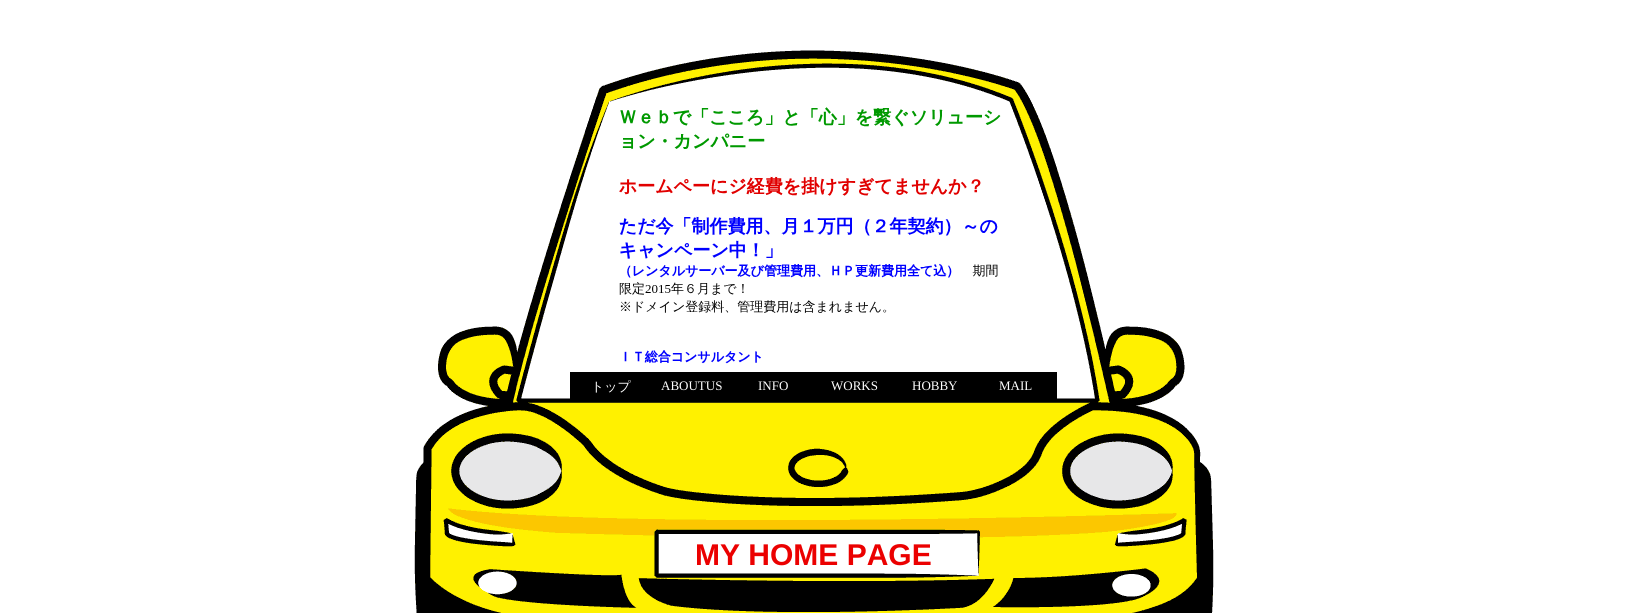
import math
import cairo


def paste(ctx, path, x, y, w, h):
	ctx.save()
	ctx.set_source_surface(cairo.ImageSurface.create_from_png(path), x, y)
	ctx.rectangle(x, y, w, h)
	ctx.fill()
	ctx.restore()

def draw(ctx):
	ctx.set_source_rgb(1, 1, 1)
	ctx.paint()
	paste(ctx, 'media/1.png', 414, 50, 800, 563)
	paste(ctx, 'media/2.png', 619, 107, 382, 257)
	ctx.set_source_rgb(0, 0, 0)
	ctx.rectangle(570, 372, 487, 27)
	ctx.fill()
	ctx.select_font_face('WenQuanYi Zen Hei Medium')
	ctx.set_font_size(13)
	ctx.set_source_rgb(1, 1, 1)
	ctx.move_to(591, 391)
	ctx.show_text('トップ')
	ctx.select_font_face('Liberation Serif')
	for x, y, s in [
		(661, 390, 'ABOUTUS'),
		(758, 390, 'INFO'),
		(831, 390, 'WORKS'),
		(912, 390, 'HOBBY'),
		(999, 390, 'MAIL'),
	]:
		ctx.move_to(x, y)
		ctx.show_text(s)
	ctx.select_font_face('Liberation Sans', cairo.FONT_SLANT_NORMAL, cairo.FONT_WEIGHT_BOLD)
	ctx.set_font_size(30)
	ctx.set_source_rgb(0.918, 0, 0)
	ctx.move_to(695, 565)
	ctx.show_text('MY HOME PAGE')


surface = cairo.ImageSurface(cairo.FORMAT_RGB24, 1627, 613)
ctx = cairo.Context(surface)
options = cairo.FontOptions()
options.set_hint_metrics(cairo.HINT_METRICS_OFF)
options.set_hint_style(cairo.HINT_STYLE_NONE)
ctx.set_font_options(options)
ctx.set_miter_limit(4)
draw(ctx)
surface.write_to_png('image.png')
